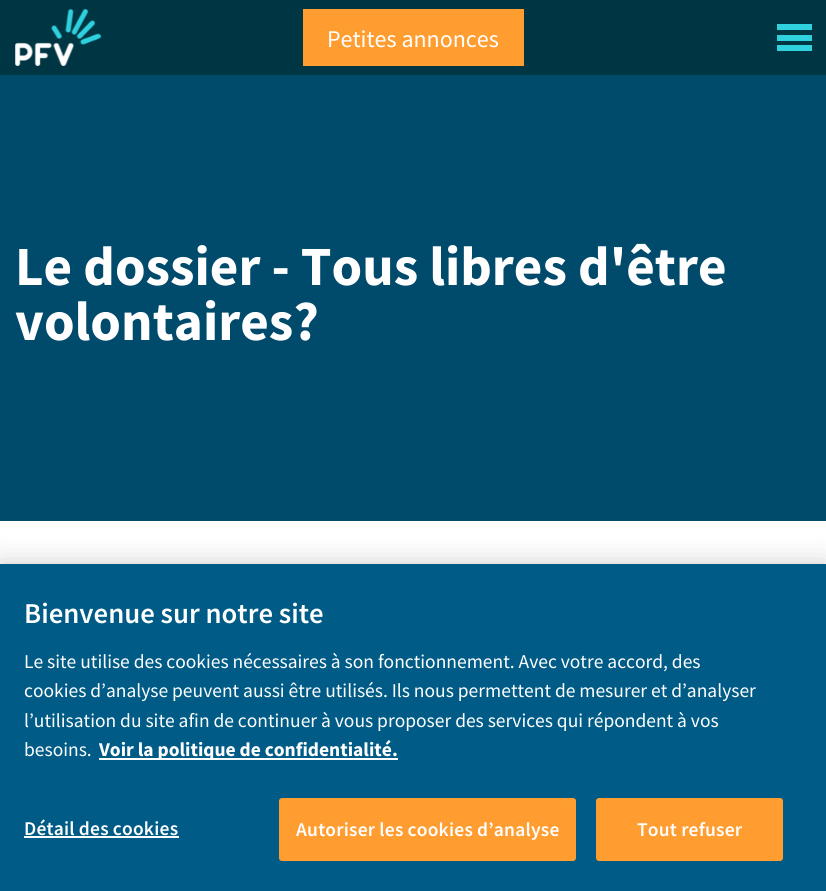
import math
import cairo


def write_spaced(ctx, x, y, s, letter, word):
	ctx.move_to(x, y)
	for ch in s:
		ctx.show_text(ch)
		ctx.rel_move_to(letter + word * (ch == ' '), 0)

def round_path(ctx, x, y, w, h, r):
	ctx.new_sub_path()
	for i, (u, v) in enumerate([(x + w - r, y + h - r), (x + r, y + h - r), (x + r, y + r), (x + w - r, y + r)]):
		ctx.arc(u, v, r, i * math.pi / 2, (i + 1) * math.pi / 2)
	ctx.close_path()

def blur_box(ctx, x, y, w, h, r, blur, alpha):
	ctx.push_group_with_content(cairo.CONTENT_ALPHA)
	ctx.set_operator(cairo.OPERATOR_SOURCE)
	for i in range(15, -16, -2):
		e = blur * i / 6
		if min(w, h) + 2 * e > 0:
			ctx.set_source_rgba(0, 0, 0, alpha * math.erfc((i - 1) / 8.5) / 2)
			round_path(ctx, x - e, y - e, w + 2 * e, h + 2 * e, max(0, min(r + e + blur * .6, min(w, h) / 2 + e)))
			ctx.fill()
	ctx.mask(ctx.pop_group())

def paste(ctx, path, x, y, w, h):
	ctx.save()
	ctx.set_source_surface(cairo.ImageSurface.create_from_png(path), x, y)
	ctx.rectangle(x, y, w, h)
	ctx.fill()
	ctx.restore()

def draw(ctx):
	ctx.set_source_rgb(1, 1, 1)
	ctx.paint()
	ctx.set_source_rgb(0, 0.212, 0.267)
	ctx.rectangle(0, 0, 826, 75)
	ctx.fill()
	paste(ctx, 'media/1.png', 15, 9, 86, 57)
	ctx.set_source_rgb(1, 0.616, 0.192)
	ctx.rectangle(303, 9, 221, 57)
	ctx.fill()
	ctx.select_font_face('Source Sans Pro')
	ctx.set_font_size(24)
	ctx.set_source_rgb(1, 1, 1)
	ctx.move_to(327, 47)
	ctx.show_text('Petites annonces')
	ctx.set_source_rgb(0.188, 0.82, 0.871)
	ctx.rectangle(777, 24, 35, 6)
	ctx.rectangle(777, 35, 35, 6)
	ctx.rectangle(777, 45, 35, 6)
	ctx.fill()
	ctx.set_source_rgb(0, 0.29, 0.424)
	ctx.rectangle(0, 75, 826, 446)
	ctx.fill()
	ctx.select_font_face('Source Sans Pro', cairo.FONT_SLANT_NORMAL, cairo.FONT_WEIGHT_BOLD)
	ctx.set_font_size(55.25)
	ctx.set_source_rgb(1, 1, 1)
	ctx.move_to(15, 285)
	ctx.show_text('Le dossier - Tous libres d\'être')
	ctx.move_to(15, 340)
	ctx.show_text('volontaires?')
	ctx.set_source_rgb(0, 0, 0)
	blur_box(ctx, 0, 564, 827, 327, 0, 13.5, 0.2)
	ctx.set_source_rgb(0, 0.361, 0.529)
	ctx.rectangle(0, 564, 826, 327)
	ctx.fill()
	ctx.select_font_face('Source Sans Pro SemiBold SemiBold')
	ctx.set_font_size(28.75)
	ctx.set_source_rgb(1, 1, 1)
	ctx.move_to(24, 623)
	ctx.show_text('Bienvenue sur notre site')
	ctx.select_font_face('Source Sans Pro')
	ctx.set_font_size(19.5)
	for x, y, s in [
		(24, 668, 'Le site utilise des cookies nécessaires à son fonctionnement. Avec votre accord, des'),
		(24, 697, 'cookies d’analyse peuvent aussi être utilisés. Ils nous permettent de mesurer et d’analyser'),
		(24, 727, 'l’utilisation du site afin de continuer à vous proposer des services qui répondent à vos'),
		(24, 756, 'besoins.'),
	]:
		ctx.move_to(x, y)
		ctx.show_text(s)
	ctx.rectangle(99, 758, 299, 2)
	ctx.fill()
	ctx.select_font_face('Source Sans Pro', cairo.FONT_SLANT_NORMAL, cairo.FONT_WEIGHT_BOLD)
	ctx.move_to(99, 756)
	ctx.show_text('Voir la politique de confidentialité.')
	ctx.select_font_face('Source Sans Pro SemiBold SemiBold')
	write_spaced(ctx, 24, 835, 'Détail des cookies', 0.2, 0)
	ctx.rectangle(24, 836, 155, 2)
	ctx.fill()
	ctx.set_source_rgb(1, 0.616, 0.192)
	round_path(ctx, 280, 799, 295, 61, 2)
	ctx.fill_preserve()
	ctx.stroke()
	ctx.set_source_rgb(1, 1, 1)
	write_spaced(ctx, 296, 836, 'Autoriser les cookies d’analyse', 0.2, 0)
	ctx.set_source_rgb(1, 0.616, 0.192)
	round_path(ctx, 597, 799, 185, 61, 2)
	ctx.fill_preserve()
	ctx.stroke()
	ctx.set_source_rgb(1, 1, 1)
	write_spaced(ctx, 637, 836, 'Tout refuser', 0.2, 0)


surface = cairo.ImageSurface(cairo.FORMAT_RGB24, 826, 891)
ctx = cairo.Context(surface)
options = cairo.FontOptions()
options.set_hint_metrics(cairo.HINT_METRICS_OFF)
options.set_hint_style(cairo.HINT_STYLE_NONE)
ctx.set_font_options(options)
ctx.set_miter_limit(4)
draw(ctx)
surface.write_to_png('image.png')
